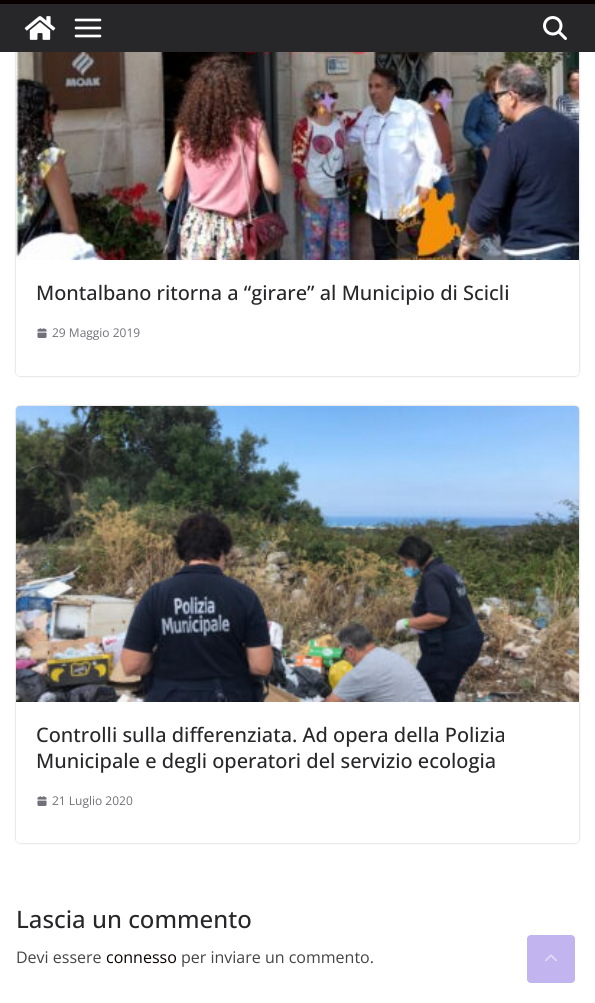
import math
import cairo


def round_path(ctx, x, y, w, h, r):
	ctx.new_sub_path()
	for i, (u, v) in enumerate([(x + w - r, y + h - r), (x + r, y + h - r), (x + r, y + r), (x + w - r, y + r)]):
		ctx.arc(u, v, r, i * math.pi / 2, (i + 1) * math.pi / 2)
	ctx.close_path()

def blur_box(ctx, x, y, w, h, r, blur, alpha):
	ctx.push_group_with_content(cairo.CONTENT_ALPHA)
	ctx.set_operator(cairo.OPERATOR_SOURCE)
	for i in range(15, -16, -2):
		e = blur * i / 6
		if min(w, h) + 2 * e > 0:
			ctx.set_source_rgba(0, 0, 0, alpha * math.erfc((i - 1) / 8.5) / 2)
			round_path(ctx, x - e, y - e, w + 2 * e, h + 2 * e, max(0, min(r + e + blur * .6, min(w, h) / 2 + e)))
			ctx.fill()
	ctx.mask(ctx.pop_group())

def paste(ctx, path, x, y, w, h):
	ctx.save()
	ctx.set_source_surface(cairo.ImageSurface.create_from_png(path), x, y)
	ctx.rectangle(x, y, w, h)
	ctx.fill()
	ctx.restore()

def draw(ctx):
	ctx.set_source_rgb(1, 1, 1)
	ctx.paint()
	ctx.save()
	ctx.set_fill_rule(cairo.FILL_RULE_EVEN_ODD)
	ctx.new_path()
	ctx.move_to(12, 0)
	ctx.line_to(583, 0)
	ctx.line_to(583, 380)
	ctx.line_to(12, 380)
	ctx.close_path()
	ctx.move_to(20, -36)
	ctx.line_to(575, -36)
	ctx.curve_to(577, -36, 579, -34, 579, -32)
	ctx.line_to(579, 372)
	ctx.curve_to(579, 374, 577, 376, 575, 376)
	ctx.line_to(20, 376)
	ctx.curve_to(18, 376, 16, 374, 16, 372)
	ctx.line_to(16, -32)
	ctx.curve_to(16, -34, 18, -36, 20, -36)
	ctx.close_path()
	ctx.clip()
	ctx.set_source_rgb(0, 0, 0)
	blur_box(ctx, 16, -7, 563, 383, 4, 1, 0.24)
	ctx.restore()
	ctx.set_source_rgb(0.153, 0.153, 0.165)
	ctx.rectangle(0, 4, 595, 48)
	ctx.fill()
	ctx.set_source_rgb(0.039, 0, 0)
	ctx.rectangle(0, 0, 595, 4)
	ctx.fill()
	paste(ctx, 'media/1.png', 24, 16, 32, 24)
	paste(ctx, 'media/2.png', 74, 18, 28, 20)
	paste(ctx, 'media/3.png', 543, 16, 24, 24)
	paste(ctx, 'media/4.png', 16, 52, 563, 208)
	ctx.select_font_face('Open Sans Medium')
	ctx.set_font_size(20)
	ctx.set_source_rgb(0.153, 0.153, 0.165)
	ctx.move_to(36, 300)
	ctx.show_text('Montalbano ritorna a “girare” al Municipio di Scicli')
	paste(ctx, 'media/5.png', 37, 328, 10, 10)
	ctx.select_font_face('Open Sans')
	ctx.set_font_size(12)
	ctx.set_source_rgb(0.443, 0.443, 0.478)
	ctx.move_to(52, 337)
	ctx.show_text('29 Maggio 2019')
	ctx.save()
	ctx.set_fill_rule(cairo.FILL_RULE_EVEN_ODD)
	ctx.new_path()
	ctx.move_to(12, 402)
	ctx.line_to(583, 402)
	ctx.line_to(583, 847)
	ctx.line_to(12, 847)
	ctx.close_path()
	ctx.move_to(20, 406)
	ctx.line_to(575, 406)
	ctx.curve_to(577, 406, 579, 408, 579, 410)
	ctx.line_to(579, 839)
	ctx.curve_to(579, 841, 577, 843, 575, 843)
	ctx.line_to(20, 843)
	ctx.curve_to(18, 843, 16, 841, 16, 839)
	ctx.line_to(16, 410)
	ctx.curve_to(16, 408, 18, 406, 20, 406)
	ctx.close_path()
	ctx.clip()
	ctx.set_source_rgb(0, 0, 0)
	blur_box(ctx, 16, 406, 563, 437, 4, 1, 0.24)
	ctx.restore()
	paste(ctx, 'media/6.png', 16, 406, 563, 296)
	ctx.select_font_face('Open Sans Medium')
	ctx.set_font_size(20)
	ctx.set_source_rgb(0.153, 0.153, 0.165)
	ctx.move_to(36, 742)
	ctx.show_text('Controlli sulla differenziata. Ad opera della Polizia')
	ctx.move_to(36, 768)
	ctx.show_text('Municipale e degli operatori del servizio ecologia')
	paste(ctx, 'media/5.png', 37, 796, 10, 10)
	ctx.select_font_face('Open Sans')
	ctx.set_font_size(12)
	ctx.set_source_rgb(0.443, 0.443, 0.478)
	ctx.move_to(52, 805)
	ctx.show_text('21 Luglio 2020')
	ctx.select_font_face('Open Sans Medium')
	ctx.set_font_size(24)
	ctx.set_source_rgb(0.153, 0.153, 0.165)
	ctx.move_to(16, 928)
	ctx.show_text('Lascia un commento')
	ctx.select_font_face('Open Sans')
	ctx.set_font_size(16)
	ctx.set_source_rgb(0.267, 0.267, 0.267)
	ctx.move_to(16, 963)
	ctx.show_text('Devi essere')
	ctx.set_source_rgb(0.039, 0, 0)
	ctx.move_to(106, 963)
	ctx.show_text('connesso')
	ctx.set_source_rgb(0.267, 0.267, 0.267)
	ctx.move_to(181, 963)
	ctx.show_text('per inviare un commento.')
	ctx.set_source_rgb(0.757, 0.706, 0.937)
	round_path(ctx, 527, 935, 48, 48, 4)
	ctx.fill()
	paste(ctx, 'media/7.png', 545, 954, 12, 8)


surface = cairo.ImageSurface(cairo.FORMAT_RGB24, 595, 1003)
ctx = cairo.Context(surface)
options = cairo.FontOptions()
options.set_hint_metrics(cairo.HINT_METRICS_OFF)
options.set_hint_style(cairo.HINT_STYLE_NONE)
ctx.set_font_options(options)
ctx.set_miter_limit(4)
draw(ctx)
surface.write_to_png('image.png')
